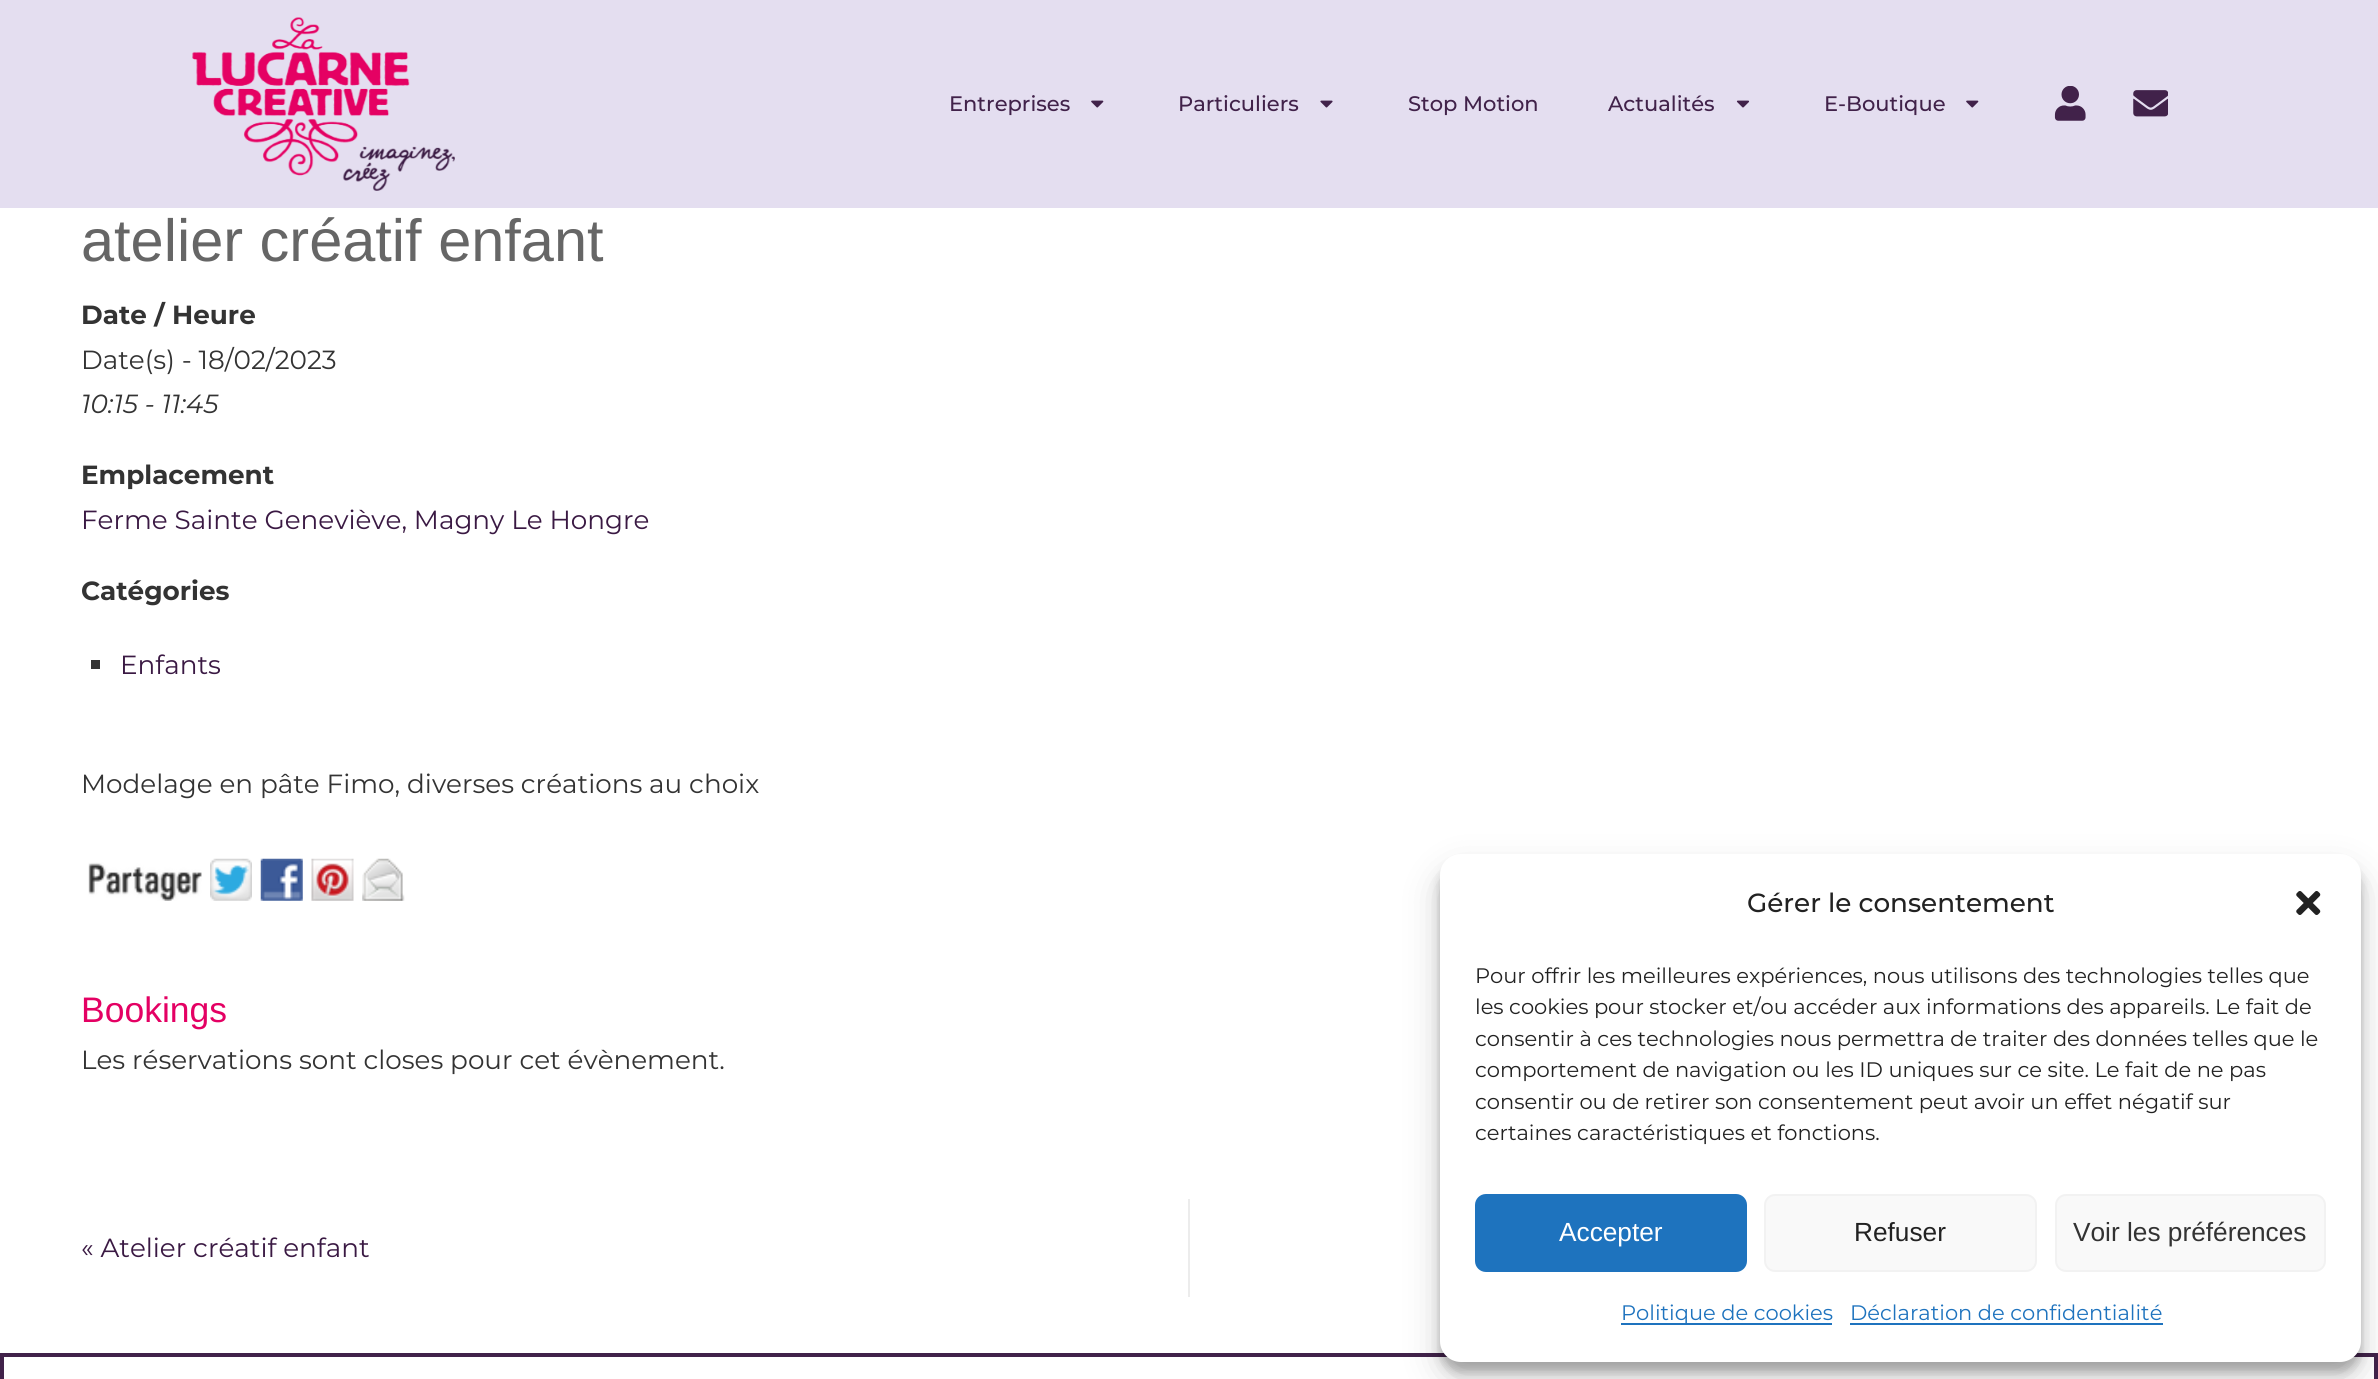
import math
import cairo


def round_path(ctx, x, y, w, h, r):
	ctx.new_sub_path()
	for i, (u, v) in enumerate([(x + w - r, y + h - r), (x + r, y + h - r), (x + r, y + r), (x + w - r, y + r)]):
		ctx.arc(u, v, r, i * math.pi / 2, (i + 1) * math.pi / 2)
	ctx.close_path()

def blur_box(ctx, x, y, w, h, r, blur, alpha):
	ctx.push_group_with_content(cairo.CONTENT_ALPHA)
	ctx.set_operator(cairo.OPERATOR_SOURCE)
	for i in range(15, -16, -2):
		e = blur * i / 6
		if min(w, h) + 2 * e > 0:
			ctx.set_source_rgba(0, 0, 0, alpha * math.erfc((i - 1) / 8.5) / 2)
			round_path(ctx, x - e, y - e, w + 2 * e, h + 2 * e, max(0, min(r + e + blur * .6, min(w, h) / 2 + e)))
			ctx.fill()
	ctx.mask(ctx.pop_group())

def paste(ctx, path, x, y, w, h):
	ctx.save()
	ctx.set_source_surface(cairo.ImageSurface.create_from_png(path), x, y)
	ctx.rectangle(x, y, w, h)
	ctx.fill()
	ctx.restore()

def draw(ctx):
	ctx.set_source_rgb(1, 1, 1)
	ctx.paint()
	ctx.set_source_rgb(0.894, 0.871, 0.941)
	ctx.rectangle(0, 0, 2378, 208)
	ctx.fill()
	paste(ctx, 'media/1.png', 192, 17, 263, 174)
	ctx.select_font_face('Montserrat Medium')
	ctx.set_font_size(21)
	ctx.set_source_rgb(0.255, 0.133, 0.29)
	ctx.move_to(949, 111)
	ctx.show_text('Entreprises')
	paste(ctx, 'media/2.png', 1091, 100, 13, 8)
	ctx.move_to(1178, 111)
	ctx.show_text('Particuliers')
	paste(ctx, 'media/3.png', 1320, 100, 13, 8)
	ctx.move_to(1408, 111)
	ctx.show_text('Stop Motion')
	ctx.move_to(1608, 111)
	ctx.show_text('Actualités')
	paste(ctx, 'media/4.png', 1736, 100, 14, 8)
	ctx.move_to(1824, 111)
	ctx.show_text('E-Boutique')
	paste(ctx, 'media/2.png', 1966, 100, 13, 8)
	paste(ctx, 'media/5.png', 2054, 86, 32, 35)
	paste(ctx, 'media/6.png', 2133, 90, 35, 27)
	ctx.select_font_face('Liberation Sans')
	ctx.set_font_size(59.5)
	ctx.set_source_rgb(0.4, 0.4, 0.4)
	ctx.move_to(81, 261)
	ctx.show_text('atelier créatif enfant')
	ctx.select_font_face('Montserrat', cairo.FONT_SLANT_NORMAL, cairo.FONT_WEIGHT_BOLD)
	ctx.set_font_size(26.25)
	ctx.set_source_rgb(0.2, 0.2, 0.2)
	ctx.move_to(81, 324)
	ctx.show_text('Date / Heure')
	ctx.select_font_face('Montserrat')
	ctx.move_to(81, 369)
	ctx.show_text('Date(s) - 18/02/2023')
	ctx.select_font_face('Montserrat', cairo.FONT_SLANT_ITALIC)
	ctx.move_to(81, 413)
	ctx.show_text('10:15 - 11:45')
	ctx.select_font_face('Montserrat', cairo.FONT_SLANT_NORMAL, cairo.FONT_WEIGHT_BOLD)
	ctx.move_to(81, 484)
	ctx.show_text('Emplacement')
	ctx.select_font_face('Montserrat')
	ctx.set_source_rgb(0.227, 0.098, 0.263)
	ctx.move_to(81, 529)
	ctx.show_text('Ferme Sainte Geneviève, Magny Le Hongre')
	ctx.select_font_face('Montserrat', cairo.FONT_SLANT_NORMAL, cairo.FONT_WEIGHT_BOLD)
	ctx.set_source_rgb(0.2, 0.2, 0.2)
	ctx.move_to(81, 600)
	ctx.show_text('Catégories')
	ctx.rectangle(91, 660, 9, 9)
	ctx.fill()
	ctx.select_font_face('Montserrat')
	ctx.set_source_rgb(0.227, 0.098, 0.263)
	ctx.move_to(120, 674)
	ctx.show_text('Enfants')
	ctx.set_source_rgb(0.2, 0.2, 0.2)
	ctx.move_to(81, 793)
	ctx.show_text('Modelage en pâte Fimo, diverses créations au choix')
	paste(ctx, 'media/7.png', 88, 862, 114, 39)
	paste(ctx, 'media/8.png', 210, 858, 42, 43)
	paste(ctx, 'media/9.png', 260, 858, 43, 43)
	paste(ctx, 'media/10.png', 311, 858, 43, 43)
	paste(ctx, 'media/11.png', 362, 858, 43, 43)
	ctx.select_font_face('Liberation Sans')
	ctx.set_font_size(35.5)
	ctx.set_source_rgb(0.894, 0, 0.388)
	ctx.move_to(81, 1022)
	ctx.show_text('Bookings')
	ctx.select_font_face('Montserrat')
	ctx.set_font_size(26.25)
	ctx.set_source_rgb(0.2, 0.2, 0.2)
	ctx.move_to(81, 1069)
	ctx.show_text('Les réservations sont closes pour cet évènement.')
	ctx.set_source_rgb(0.922, 0.922, 0.922)
	ctx.rectangle(1188, 1199, 2, 98)
	ctx.fill()
	ctx.set_source_rgb(0.227, 0.098, 0.263)
	ctx.move_to(81, 1257)
	ctx.show_text('« Atelier créatif enfant')
	ctx.rectangle(2, 1355, 2374, 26)
	ctx.set_source_rgb(0.255, 0.133, 0.29)
	ctx.set_line_width(4)
	ctx.stroke()
	ctx.set_source_rgb(0, 0, 0)
	blur_box(ctx, 1440, 865, 921, 507, 21, 5, 0.23)
	blur_box(ctx, 1440, 872, 921, 507, 21, 17.5, 0.19)
	ctx.set_source_rgb(1, 1, 1)
	round_path(ctx, 1440, 854, 921, 508, 21)
	ctx.fill()
	ctx.select_font_face('Montserrat Medium')
	ctx.set_source_rgb(0.133, 0.133, 0.133)
	ctx.move_to(1747, 912)
	ctx.show_text('Gérer le consentement')
	paste(ctx, 'media/12.png', 2296, 891, 25, 24)
	ctx.select_font_face('Montserrat')
	ctx.set_font_size(21)
	for x, y, s in [
		(1475, 983, 'Pour offrir les meilleures expériences, nous utilisons des technologies telles que'),
		(1475, 1014, 'les cookies pour stocker et/ou accéder aux informations des appareils. Le fait de'),
		(1475, 1046, 'consentir à ces technologies nous permettra de traiter des données telles que le'),
		(1475, 1077, 'comportement de navigation ou les ID uniques sur ce site. Le fait de ne pas'),
		(1475, 1109, 'consentir ou de retirer son consentement peut avoir un effet négatif sur'),
		(1475, 1140, 'certaines caractéristiques et fonctions.'),
	]:
		ctx.move_to(x, y)
		ctx.show_text(s)
	ctx.set_source_rgb(0.118, 0.451, 0.745)
	round_path(ctx, 1476, 1195, 270, 76, 10)
	ctx.fill_preserve()
	ctx.set_line_width(2)
	ctx.stroke()
	ctx.select_font_face('Liberation Sans')
	ctx.set_font_size(26.25)
	ctx.set_source_rgb(1, 1, 1)
	ctx.move_to(1559, 1241)
	ctx.show_text('Accepter')
	ctx.set_source_rgb(0.976, 0.976, 0.976)
	round_path(ctx, 1765, 1195, 271, 76, 10)
	ctx.fill_preserve()
	ctx.set_source_rgb(0.949, 0.949, 0.949)
	ctx.stroke()
	ctx.set_source_rgb(0.133, 0.133, 0.133)
	ctx.move_to(1854, 1241)
	ctx.show_text('Refuser')
	ctx.set_source_rgb(0.976, 0.976, 0.976)
	round_path(ctx, 2056, 1195, 269, 76, 10)
	ctx.fill_preserve()
	ctx.set_source_rgb(0.949, 0.949, 0.949)
	ctx.stroke()
	ctx.set_source_rgb(0.2, 0.2, 0.2)
	ctx.move_to(2073, 1241)
	ctx.show_text('Voir les préférences')
	ctx.set_source_rgb(0.118, 0.451, 0.745)
	ctx.rectangle(1621, 1323, 211, 2)
	ctx.fill()
	ctx.select_font_face('Montserrat')
	ctx.set_font_size(21)
	ctx.move_to(1621, 1320)
	ctx.show_text('Politique de cookies')
	ctx.move_to(1850, 1320)
	ctx.show_text('Déclaration de confidentialité')
	ctx.rectangle(1850, 1323, 313, 2)
	ctx.fill()


surface = cairo.ImageSurface(cairo.FORMAT_RGB24, 2378, 1379)
ctx = cairo.Context(surface)
options = cairo.FontOptions()
options.set_hint_metrics(cairo.HINT_METRICS_OFF)
options.set_hint_style(cairo.HINT_STYLE_NONE)
ctx.set_font_options(options)
ctx.set_miter_limit(4)
draw(ctx)
surface.write_to_png('image.png')
